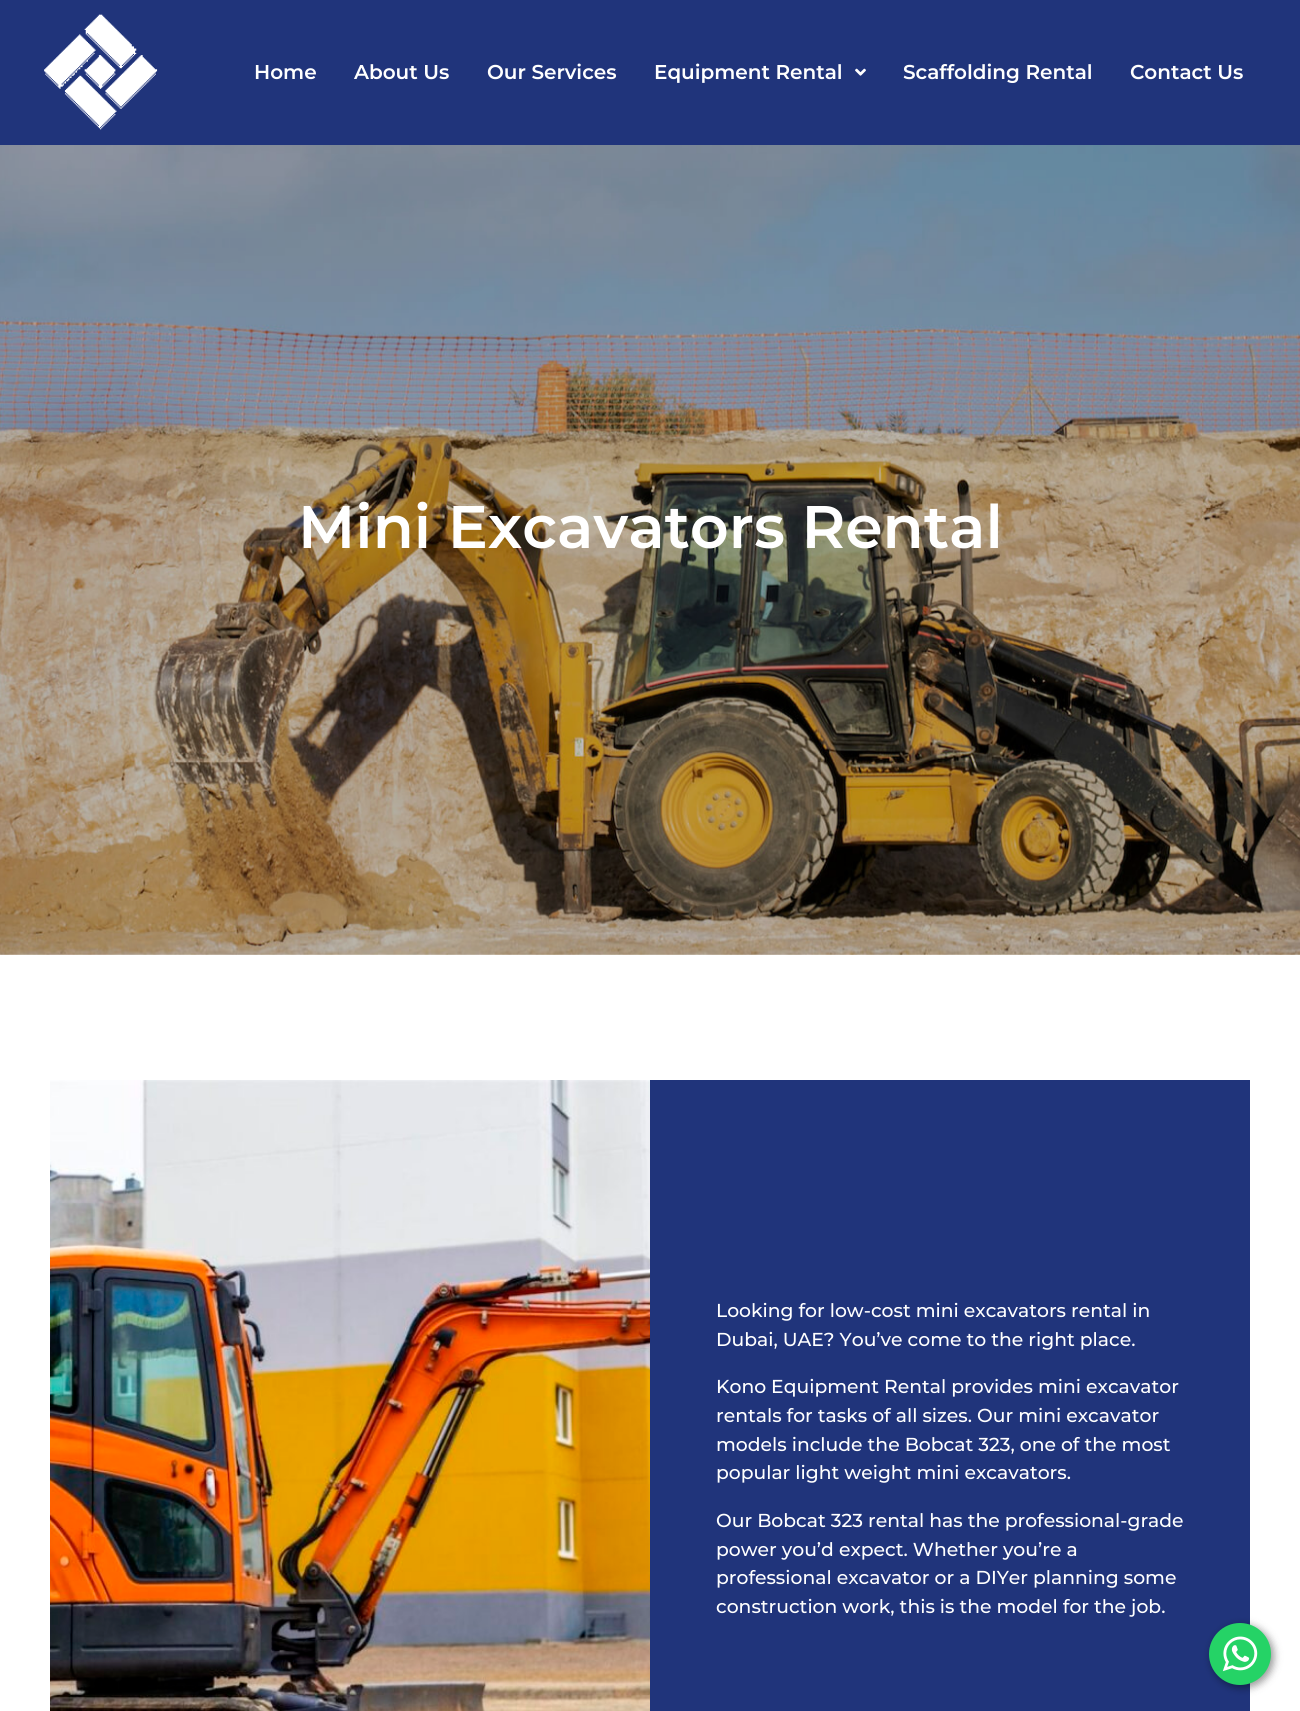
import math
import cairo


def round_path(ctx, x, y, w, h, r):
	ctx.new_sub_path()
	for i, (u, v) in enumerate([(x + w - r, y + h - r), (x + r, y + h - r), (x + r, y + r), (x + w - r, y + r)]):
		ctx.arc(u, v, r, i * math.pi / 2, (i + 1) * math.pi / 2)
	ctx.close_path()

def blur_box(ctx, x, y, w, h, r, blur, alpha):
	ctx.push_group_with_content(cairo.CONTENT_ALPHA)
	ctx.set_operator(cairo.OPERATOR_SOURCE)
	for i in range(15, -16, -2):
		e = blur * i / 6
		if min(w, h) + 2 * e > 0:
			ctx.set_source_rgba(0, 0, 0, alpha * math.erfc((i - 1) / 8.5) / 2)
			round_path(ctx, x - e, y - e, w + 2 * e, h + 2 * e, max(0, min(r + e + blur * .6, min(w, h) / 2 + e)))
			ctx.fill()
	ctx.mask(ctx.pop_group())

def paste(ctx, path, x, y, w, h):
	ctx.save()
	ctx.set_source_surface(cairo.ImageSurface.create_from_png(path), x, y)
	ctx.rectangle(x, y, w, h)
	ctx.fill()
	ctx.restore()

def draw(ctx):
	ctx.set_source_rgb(1, 1, 1)
	ctx.paint()
	ctx.set_source_rgb(0.125, 0.204, 0.482)
	ctx.rectangle(0, 0, 1300, 145)
	ctx.fill()
	paste(ctx, 'media/1.png', 44, 14, 114, 116)
	ctx.select_font_face('Montserrat SemiBold')
	ctx.set_font_size(20)
	ctx.set_source_rgb(1, 1, 1)
	for x, y, s in [
		(254, 79, 'Home'),
		(354, 79, 'About Us'),
		(487, 79, 'Our Services'),
		(654, 79, 'Equipment Rental'),
	]:
		ctx.move_to(x, y)
		ctx.show_text(s)
	paste(ctx, 'media/2.png', 855, 68, 11, 8)
	ctx.move_to(903, 79)
	ctx.show_text('Scaffolding Rental')
	ctx.move_to(1130, 79)
	ctx.show_text('Contact Us')
	paste(ctx, 'media/3.png', 0, 145, 1300, 810)
	ctx.set_font_size(60)
	ctx.move_to(298, 548)
	ctx.show_text('Mini Excavators Rental')
	paste(ctx, 'media/4.png', 50, 1080, 600, 631)
	ctx.set_source_rgb(0.125, 0.204, 0.482)
	ctx.rectangle(650, 1080, 600, 631)
	ctx.fill()
	ctx.select_font_face('Montserrat Medium')
	ctx.set_font_size(18.75)
	ctx.set_source_rgb(1, 1, 1)
	for x, y, s in [
		(716, 1317, 'Looking for low-cost mini excavators rental in'),
		(716, 1346, 'Dubai, UAE? You’ve come to the right place.'),
		(716, 1393, 'Kono Equipment Rental provides mini excavator'),
		(716, 1422, 'rentals for tasks of all sizes. Our mini excavator'),
		(716, 1451, 'models include the Bobcat 323, one of the most'),
		(716, 1479, 'popular light weight mini excavators.'),
		(716, 1527, 'Our Bobcat 323 rental has the professional-grade'),
		(716, 1556, 'power you’d expect. Whether you’re a'),
		(716, 1584, 'professional excavator or a DIYer planning some'),
		(716, 1613, 'construction work, this is the model for the job.'),
	]:
		ctx.move_to(x, y)
		ctx.show_text(s)
	ctx.set_source_rgb(0, 0, 0)
	blur_box(ctx, 1211, 1625, 63, 63, 31.5, 4, 0.4)
	ctx.set_source_rgb(0.145, 0.827, 0.4)
	ctx.arc(1240, 1654, 31, 0, 2 * math.pi)
	ctx.fill()
	paste(ctx, 'media/5.png', 1222, 1636, 36, 36)


surface = cairo.ImageSurface(cairo.FORMAT_RGB24, 1300, 1711)
ctx = cairo.Context(surface)
options = cairo.FontOptions()
options.set_hint_metrics(cairo.HINT_METRICS_OFF)
options.set_hint_style(cairo.HINT_STYLE_NONE)
ctx.set_font_options(options)
ctx.set_miter_limit(4)
draw(ctx)
surface.write_to_png('image.png')
